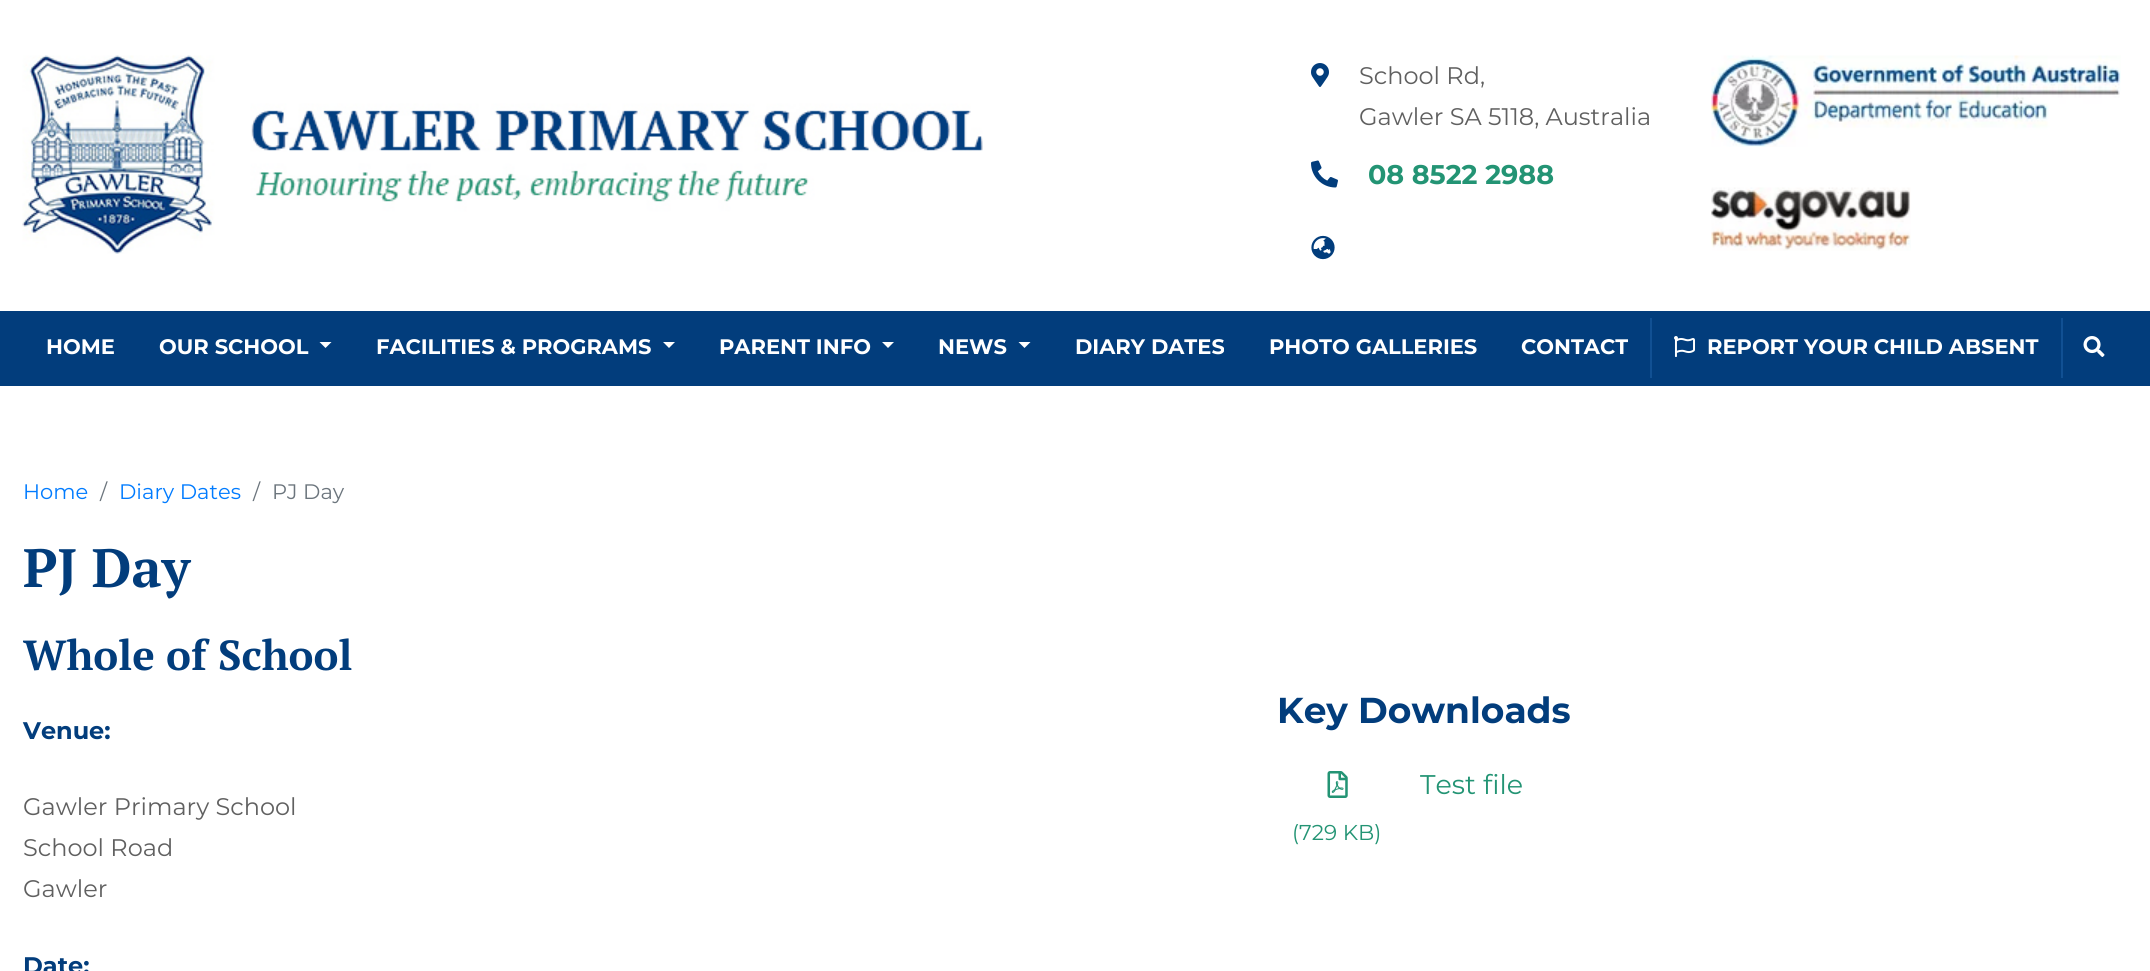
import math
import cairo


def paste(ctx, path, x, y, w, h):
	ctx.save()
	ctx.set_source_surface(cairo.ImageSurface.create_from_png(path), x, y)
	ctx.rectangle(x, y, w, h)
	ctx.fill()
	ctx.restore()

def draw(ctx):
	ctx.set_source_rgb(1, 1, 1)
	ctx.paint()
	paste(ctx, 'media/1.png', 22, 55, 961, 199)
	paste(ctx, 'media/2.png', 1311, 63, 18, 24)
	ctx.select_font_face('Montserrat')
	ctx.set_font_size(24)
	ctx.set_source_rgb(0.376, 0.376, 0.376)
	ctx.move_to(1359, 84)
	ctx.show_text('School Rd,')
	ctx.move_to(1359, 125)
	ctx.show_text('Gawler SA 5118, Australia')
	paste(ctx, 'media/3.png', 1311, 160, 27, 28)
	ctx.select_font_face('Montserrat', cairo.FONT_SLANT_NORMAL, cairo.FONT_WEIGHT_BOLD)
	ctx.set_font_size(27)
	ctx.set_source_rgb(0.137, 0.58, 0.455)
	ctx.move_to(1368, 184)
	ctx.show_text('08 8522 2988')
	paste(ctx, 'media/4.png', 1311, 235, 24, 25)
	paste(ctx, 'media/5.png', 1711, 55, 410, 92)
	paste(ctx, 'media/6.png', 1711, 187, 200, 64)
	ctx.set_source_rgb(0.008, 0.239, 0.486)
	ctx.rectangle(0, 311, 2150, 75)
	ctx.fill()
	ctx.set_font_size(21)
	ctx.set_source_rgb(1, 1, 1)
	ctx.move_to(46, 354)
	ctx.show_text('HOME')
	ctx.move_to(159, 354)
	ctx.show_text('OUR SCHOOL')
	ctx.new_path()
	ctx.move_to(319.5, 342)
	ctx.line_to(331.5, 342)
	ctx.line_to(325.5, 348)
	ctx.close_path()
	ctx.fill()
	ctx.move_to(376, 354)
	ctx.show_text('FACILITIES & PROGRAMS')
	ctx.new_path()
	ctx.move_to(663, 342)
	ctx.line_to(675, 342)
	ctx.line_to(669, 348)
	ctx.close_path()
	ctx.fill()
	ctx.move_to(719, 354)
	ctx.show_text('PARENT INFO')
	ctx.new_path()
	ctx.move_to(882, 342)
	ctx.line_to(894, 342)
	ctx.line_to(888, 348)
	ctx.close_path()
	ctx.fill()
	ctx.move_to(938, 354)
	ctx.show_text('NEWS')
	ctx.new_path()
	ctx.move_to(1018.5, 342)
	ctx.line_to(1030.5, 342)
	ctx.line_to(1024.5, 348)
	ctx.close_path()
	ctx.fill()
	for x, y, s in [
		(1075, 354, 'DIARY DATES'),
		(1269, 354, 'PHOTO GALLERIES'),
		(1521, 354, 'CONTACT'),
	]:
		ctx.move_to(x, y)
		ctx.show_text(s)
	ctx.set_source_rgb(0.067, 0.314, 0.576)
	ctx.rectangle(1650, 318, 2, 60)
	ctx.fill()
	paste(ctx, 'media/7.png', 1674, 336, 21, 21)
	ctx.set_source_rgb(1, 1, 1)
	ctx.move_to(1707, 354)
	ctx.show_text('REPORT YOUR CHILD ABSENT')
	ctx.set_source_rgb(0.067, 0.314, 0.576)
	ctx.rectangle(2061, 318, 2, 60)
	ctx.fill()
	paste(ctx, 'media/8.png', 2083, 336, 22, 21)
	ctx.select_font_face('Montserrat')
	ctx.set_source_rgb(0, 0.482, 1)
	ctx.move_to(23, 499)
	ctx.show_text('Home')
	ctx.set_source_rgb(0.424, 0.459, 0.49)
	ctx.move_to(100, 499)
	ctx.show_text('/')
	ctx.set_source_rgb(0, 0.482, 1)
	ctx.move_to(119, 499)
	ctx.show_text('Diary Dates')
	ctx.set_source_rgb(0.424, 0.459, 0.49)
	ctx.move_to(253, 499)
	ctx.show_text('/')
	ctx.move_to(272, 499)
	ctx.show_text('PJ Day')
	ctx.select_font_face('PT Serif', cairo.FONT_SLANT_NORMAL, cairo.FONT_WEIGHT_BOLD)
	ctx.set_font_size(54)
	ctx.set_source_rgb(0.008, 0.239, 0.486)
	ctx.move_to(23, 587)
	ctx.show_text('PJ Day')
	ctx.set_font_size(42)
	ctx.move_to(23, 670)
	ctx.show_text('Whole of School')
	ctx.select_font_face('Montserrat', cairo.FONT_SLANT_NORMAL, cairo.FONT_WEIGHT_BOLD)
	ctx.set_font_size(24)
	ctx.move_to(23, 739)
	ctx.show_text('Venue:')
	ctx.select_font_face('Montserrat')
	ctx.set_source_rgb(0.376, 0.376, 0.376)
	for x, y, s in [
		(23, 815, 'Gawler Primary School'),
		(23, 856, 'School Road'),
		(23, 897, 'Gawler'),
	]:
		ctx.move_to(x, y)
		ctx.show_text(s)
	ctx.select_font_face('Montserrat', cairo.FONT_SLANT_NORMAL, cairo.FONT_WEIGHT_BOLD)
	ctx.set_source_rgb(0.008, 0.239, 0.486)
	ctx.move_to(23, 974)
	ctx.show_text('Date:')
	ctx.set_font_size(36)
	ctx.move_to(1277, 723)
	ctx.show_text('Key Downloads')
	ctx.select_font_face('Montserrat')
	ctx.set_font_size(27)
	ctx.set_source_rgb(0.137, 0.58, 0.455)
	ctx.move_to(1420, 794)
	ctx.show_text('Test file')
	paste(ctx, 'media/9.png', 1327, 771, 21, 27)
	ctx.set_font_size(21.5)
	ctx.move_to(1292, 840)
	ctx.show_text('(729 KB)')


surface = cairo.ImageSurface(cairo.FORMAT_RGB24, 2150, 971)
ctx = cairo.Context(surface)
options = cairo.FontOptions()
options.set_hint_metrics(cairo.HINT_METRICS_OFF)
options.set_hint_style(cairo.HINT_STYLE_NONE)
ctx.set_font_options(options)
ctx.set_miter_limit(4)
draw(ctx)
surface.write_to_png('image.png')
